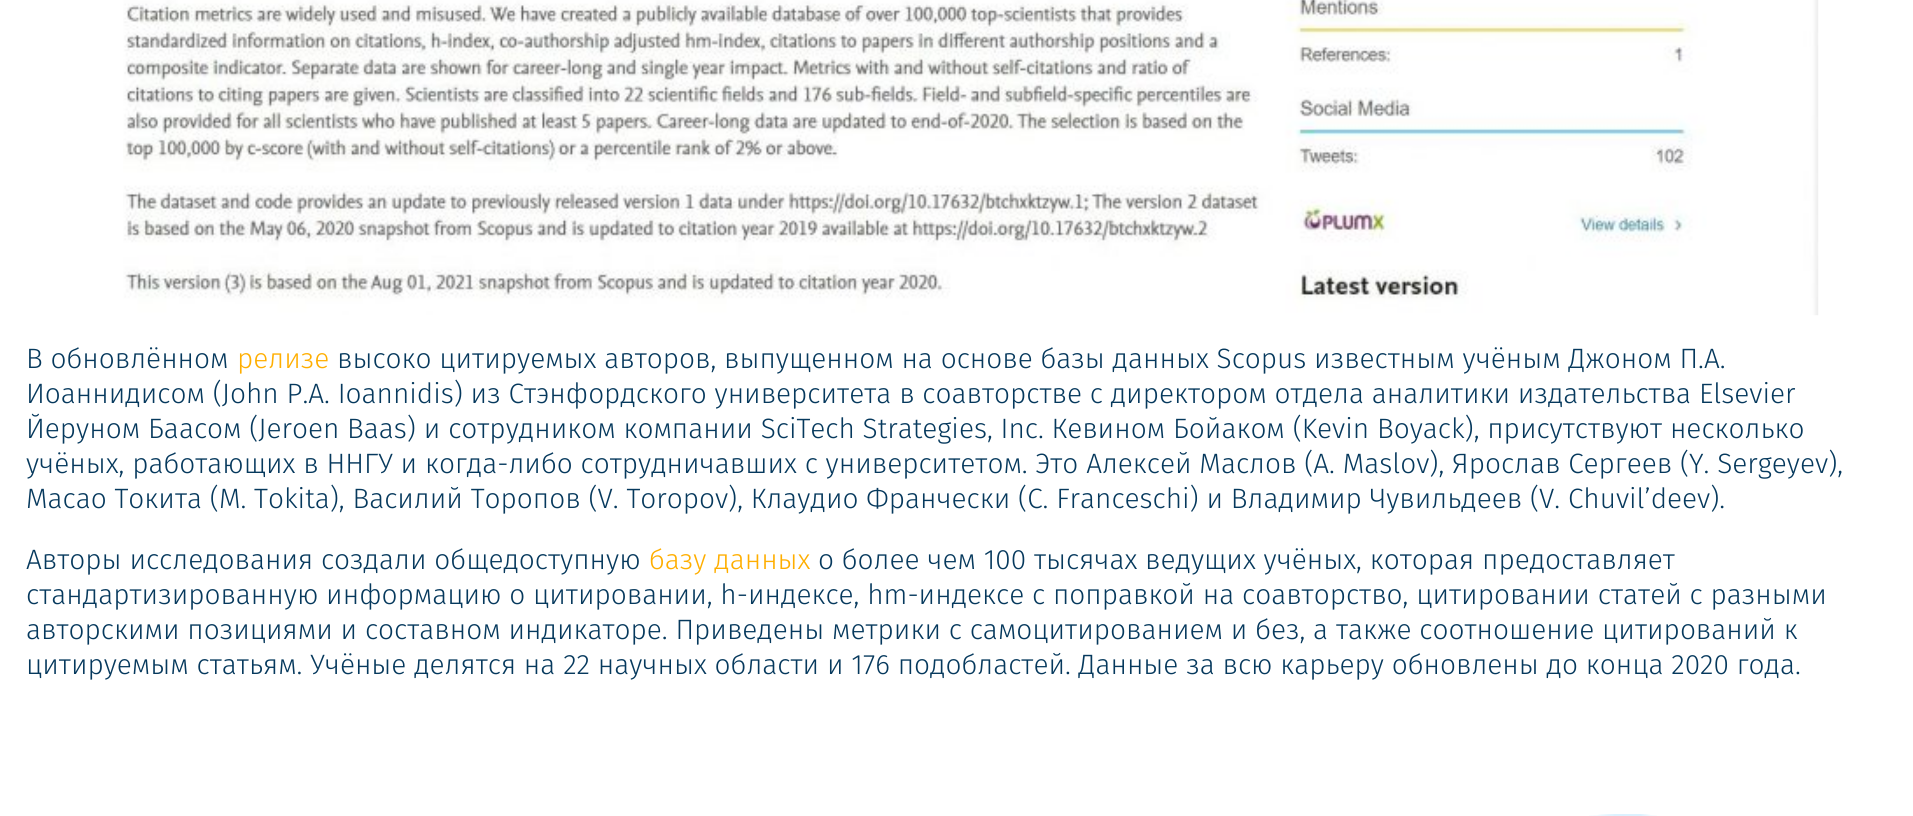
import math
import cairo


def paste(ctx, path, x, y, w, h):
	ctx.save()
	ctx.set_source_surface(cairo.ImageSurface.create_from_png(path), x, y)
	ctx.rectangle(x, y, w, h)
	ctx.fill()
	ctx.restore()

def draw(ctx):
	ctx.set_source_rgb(1, 1, 1)
	ctx.paint()
	paste(ctx, 'media/1.png', 123, 0, 1696, 316)
	ctx.select_font_face('Fira Sans Light')
	ctx.set_font_size(28)
	ctx.set_source_rgb(0.027, 0.224, 0.365)
	ctx.move_to(26, 368)
	ctx.show_text('В обновлённом')
	ctx.set_source_rgb(1, 0.682, 0)
	ctx.move_to(237, 368)
	ctx.show_text('релизе')
	ctx.set_source_rgb(0.027, 0.224, 0.365)
	for x, y, s in [
		(337, 368, 'высоко цитируемых авторов, выпущенном на основе базы данных Scopus известным учёным Джоном П.А.'),
		(26, 403, 'Иоаннидисом (John P.A. Ioannidis) из Стэнфордского университета в соавторстве с директором отдела аналитики издательства Elsevier'),
		(26, 438, 'Йеруном Баасом (Jeroen Baas) и сотрудником компании SciTech Strategies, Inc. Кевином Бойаком (Kevin Boyack), присутствуют несколько'),
		(26, 473, 'учёных, работающих в ННГУ и когда-либо сотрудничавших с университетом. Это Алексей Маслов (A. Maslov), Ярослав Сергеев (Y. Sergeyev),'),
		(26, 508, 'Масао Токита (M. Tokita), Василий Торопов (V. Toropov), Клаудио Франчески (C. Franceschi) и Владимир Чувильдеев (V. Chuvil’deev).'),
		(26, 569, 'Авторы исследования создали общедоступную'),
	]:
		ctx.move_to(x, y)
		ctx.show_text(s)
	ctx.set_source_rgb(1, 0.682, 0)
	ctx.move_to(649, 569)
	ctx.show_text('базу данных')
	ctx.set_source_rgb(0.027, 0.224, 0.365)
	for x, y, s in [
		(818, 569, 'о более чем 100 тысячах ведущих учёных, которая предоставляет'),
		(26, 604, 'стандартизированную информацию о цитировании, h-индексе, hm-индексе с поправкой на соавторство, цитировании статей с разными'),
		(26, 639, 'авторскими позициями и составном индикаторе. Приведены метрики с самоцитированием и без, а также соотношение цитирований к'),
		(26, 674, 'цитируемым статьям. Учёные делятся на 22 научных области и 176 подобластей. Данные за всю карьеру обновлены до конца 2020 года.'),
	]:
		ctx.move_to(x, y)
		ctx.show_text(s)
	paste(ctx, 'media/2.png', 1589, 814, 68, 2)


surface = cairo.ImageSurface(cairo.FORMAT_RGB24, 1913, 816)
ctx = cairo.Context(surface)
options = cairo.FontOptions()
options.set_hint_metrics(cairo.HINT_METRICS_OFF)
options.set_hint_style(cairo.HINT_STYLE_NONE)
ctx.set_font_options(options)
ctx.set_miter_limit(4)
draw(ctx)
surface.write_to_png('image.png')
